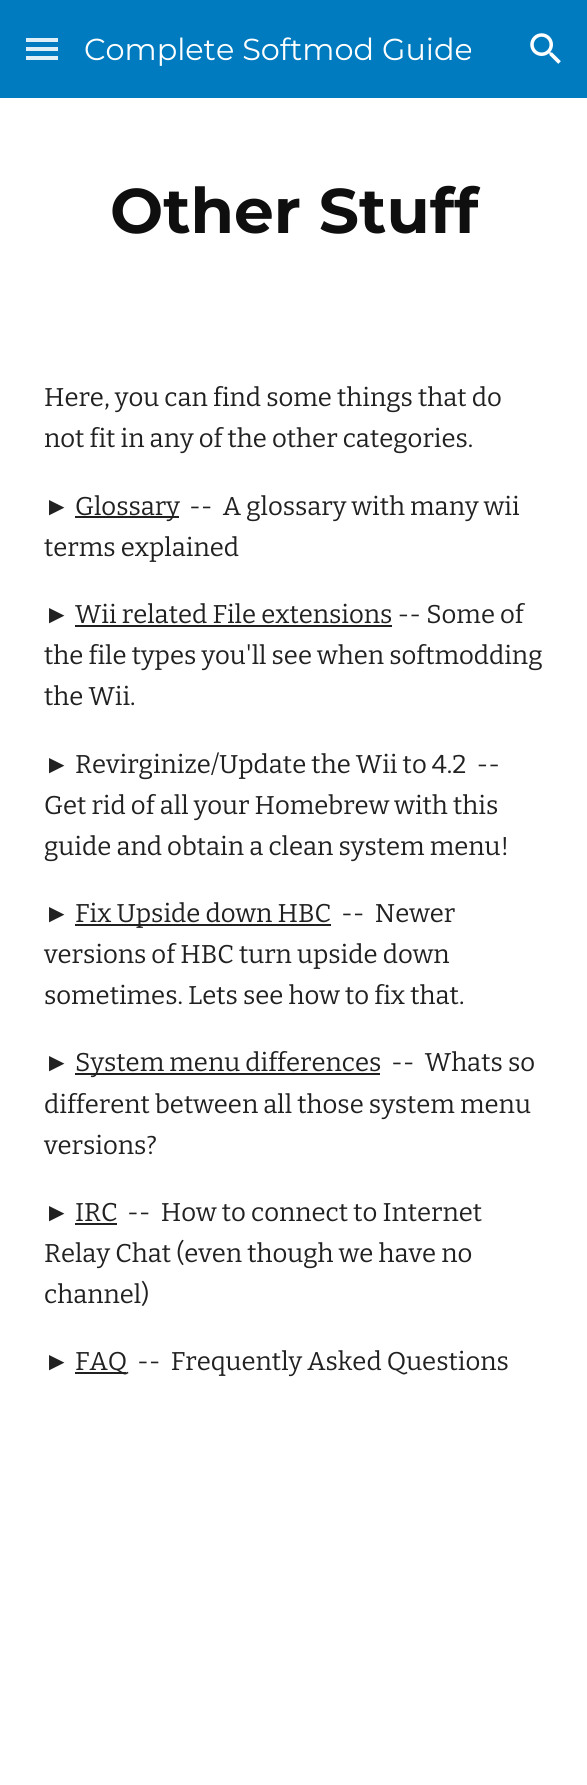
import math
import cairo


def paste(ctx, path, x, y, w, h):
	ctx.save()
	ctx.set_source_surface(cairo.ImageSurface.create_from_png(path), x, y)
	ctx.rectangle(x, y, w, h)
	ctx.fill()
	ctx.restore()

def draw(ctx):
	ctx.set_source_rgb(1, 1, 1)
	ctx.paint()
	ctx.set_source_rgb(0, 0.482, 0.749)
	ctx.rectangle(0, 0, 587, 98)
	ctx.fill()
	ctx.set_source_rgb(0.875, 0.937, 0.969)
	ctx.rectangle(26, 38, 32, 4)
	ctx.rectangle(26, 47, 32, 4)
	ctx.fill()
	ctx.set_source_rgba(1, 1, 1, 0.88)
	ctx.rectangle(26, 56, 32, 4)
	ctx.fill()
	ctx.select_font_face('Montserrat')
	ctx.set_font_size(30.3)
	ctx.set_source_rgb(1, 1, 1)
	ctx.move_to(84, 60)
	ctx.show_text('Complete Softmod Guide')
	paste(ctx, 'media/1.png', 530, 33, 31, 31)
	ctx.select_font_face('Montserrat', cairo.FONT_SLANT_NORMAL, cairo.FONT_WEIGHT_BOLD)
	ctx.set_font_size(63)
	ctx.set_source_rgb(0.059, 0.059, 0.059)
	ctx.move_to(110, 233)
	ctx.show_text('Other Stuff')
	ctx.select_font_face('Bitter')
	ctx.set_font_size(25.7)
	ctx.set_source_rgb(0.129, 0.129, 0.129)
	ctx.move_to(44, 406)
	ctx.show_text('Here, you can find some things that do')
	ctx.move_to(44, 447)
	ctx.show_text('not fit in any of the other categories.')
	ctx.select_font_face('Liberation Serif')
	ctx.move_to(44, 515)
	ctx.show_text('►')
	ctx.rectangle(75, 516, 104, 2)
	ctx.fill()
	ctx.select_font_face('Bitter')
	for x, y, s in [
		(75, 515, 'Glossary'),
		(189, 515, '--  A glossary with many wii'),
		(44, 556, 'terms explained'),
	]:
		ctx.move_to(x, y)
		ctx.show_text(s)
	ctx.select_font_face('Liberation Serif')
	ctx.move_to(44, 623)
	ctx.show_text('►')
	ctx.select_font_face('Bitter')
	ctx.move_to(75, 623)
	ctx.show_text('Wii related File extensions -- Some of')
	ctx.rectangle(75, 625, 317, 2)
	ctx.fill()
	ctx.move_to(44, 664)
	ctx.show_text('the file types you\'ll see when softmodding')
	ctx.move_to(44, 705)
	ctx.show_text('the Wii.')
	ctx.select_font_face('Liberation Serif')
	ctx.move_to(44, 773)
	ctx.show_text('►')
	ctx.select_font_face('Bitter')
	for x, y, s in [
		(75, 773, 'Revirginize/Update the Wii to 4.2  --'),
		(44, 814, 'Get rid of all your Homebrew with this'),
		(44, 855, 'guide and obtain a clean system menu!'),
	]:
		ctx.move_to(x, y)
		ctx.show_text(s)
	ctx.select_font_face('Liberation Serif')
	ctx.move_to(44, 922)
	ctx.show_text('►')
	ctx.rectangle(75, 924, 256, 2)
	ctx.fill()
	ctx.select_font_face('Bitter')
	for x, y, s in [
		(75, 922, 'Fix Upside down HBC'),
		(341, 922, '--  Newer'),
		(44, 963, 'versions of HBC turn upside down'),
		(44, 1004, 'sometimes. Lets see how to fix that.'),
	]:
		ctx.move_to(x, y)
		ctx.show_text(s)
	ctx.select_font_face('Liberation Serif')
	ctx.move_to(44, 1071)
	ctx.show_text('►')
	ctx.rectangle(75, 1073, 305, 2)
	ctx.fill()
	ctx.select_font_face('Bitter')
	for x, y, s in [
		(75, 1071, 'System menu differences'),
		(391, 1071, '--  Whats so'),
		(44, 1113, 'different between all those system menu'),
		(44, 1154, 'versions?'),
	]:
		ctx.move_to(x, y)
		ctx.show_text(s)
	ctx.select_font_face('Liberation Serif')
	ctx.move_to(44, 1221)
	ctx.show_text('►')
	ctx.select_font_face('Bitter')
	ctx.move_to(75, 1221)
	ctx.show_text('IRC')
	ctx.rectangle(75, 1223, 42, 2)
	ctx.fill()
	for x, y, s in [
		(127, 1221, '--  How to connect to Internet'),
		(44, 1262, 'Relay Chat (even though we have no'),
		(44, 1303, 'channel)'),
	]:
		ctx.move_to(x, y)
		ctx.show_text(s)
	ctx.select_font_face('Liberation Serif')
	ctx.move_to(44, 1370)
	ctx.show_text('►')
	ctx.rectangle(75, 1372, 51, 2)
	ctx.fill()
	ctx.select_font_face('Bitter')
	ctx.move_to(75, 1370)
	ctx.show_text('FAQ')
	ctx.move_to(137, 1370)
	ctx.show_text('--  Frequently Asked Questions')


surface = cairo.ImageSurface(cairo.FORMAT_RGB24, 587, 1785)
ctx = cairo.Context(surface)
options = cairo.FontOptions()
options.set_hint_metrics(cairo.HINT_METRICS_OFF)
options.set_hint_style(cairo.HINT_STYLE_NONE)
ctx.set_font_options(options)
ctx.set_miter_limit(4)
draw(ctx)
surface.write_to_png('image.png')
